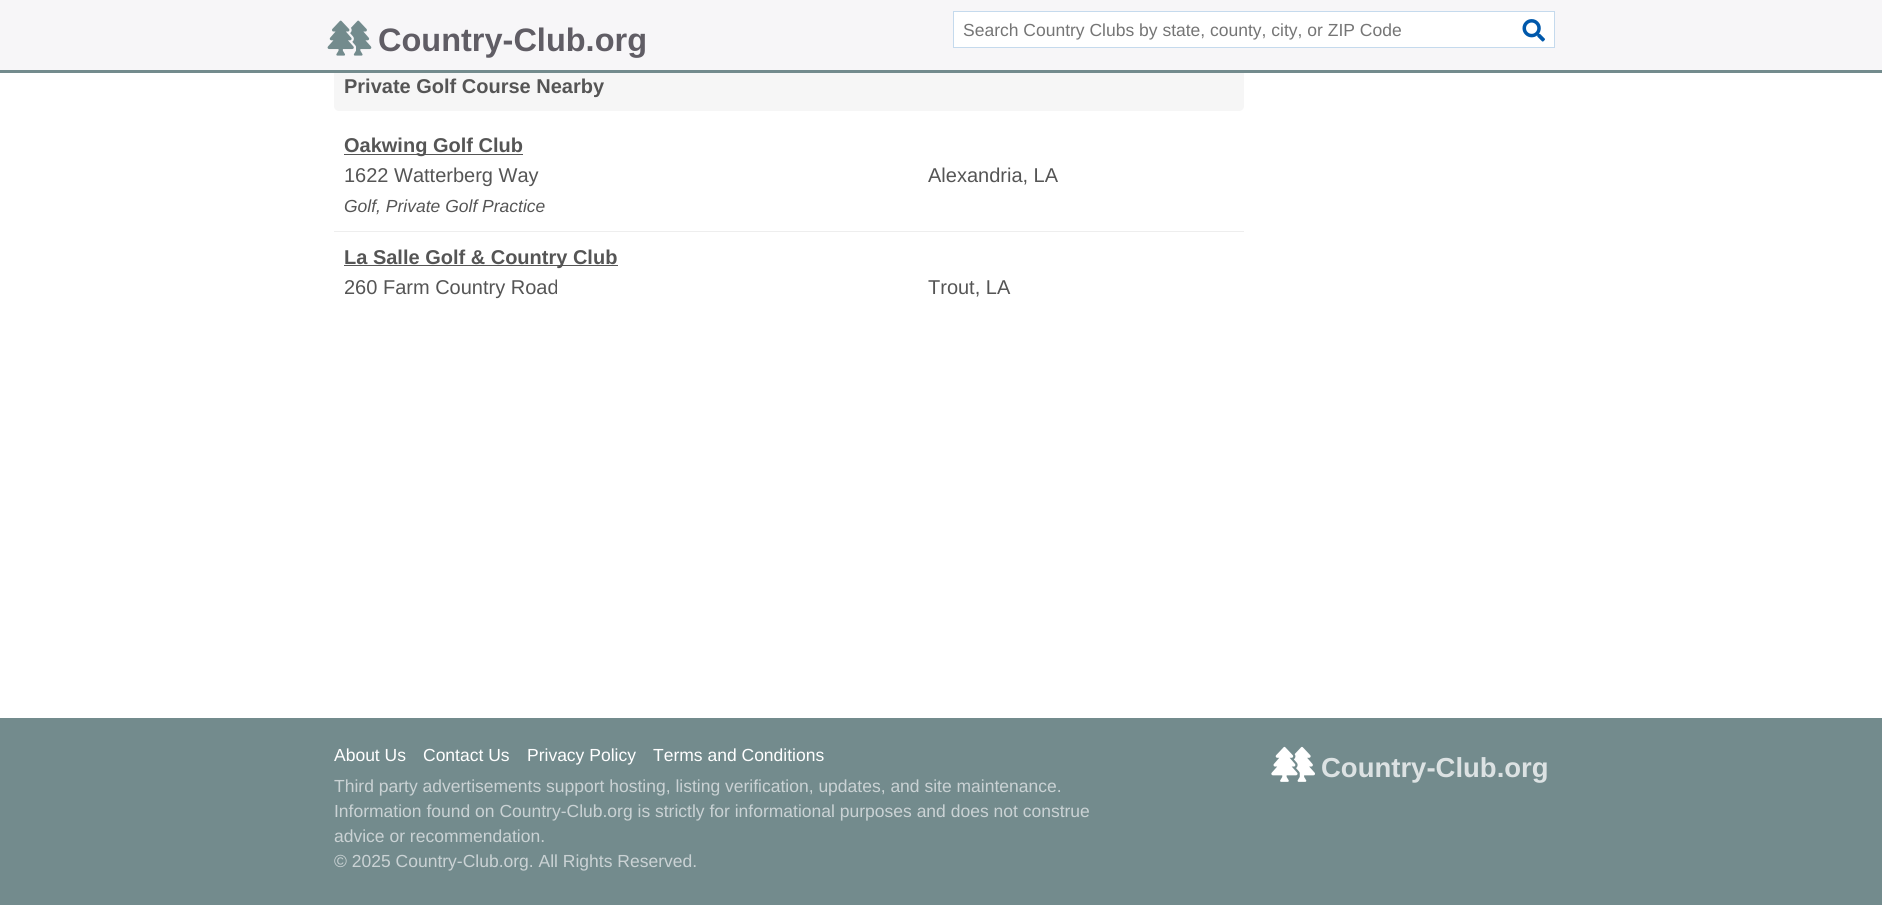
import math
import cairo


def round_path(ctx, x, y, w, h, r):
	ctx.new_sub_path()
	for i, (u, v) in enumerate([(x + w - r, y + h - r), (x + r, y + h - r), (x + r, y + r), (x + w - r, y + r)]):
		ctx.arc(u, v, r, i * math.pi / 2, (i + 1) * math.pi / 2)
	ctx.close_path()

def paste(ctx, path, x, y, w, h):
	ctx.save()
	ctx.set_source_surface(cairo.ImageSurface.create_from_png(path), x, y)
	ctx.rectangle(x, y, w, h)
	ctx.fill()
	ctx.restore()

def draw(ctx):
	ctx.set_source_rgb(1, 1, 1)
	ctx.paint()
	ctx.set_source_rgb(0.961, 0.961, 0.961)
	round_path(ctx, 334, 63, 910, 48, 5)
	ctx.fill()
	ctx.set_source_rgb(0.965, 0.961, 0.969)
	ctx.rectangle(0, 0, 1882, 70)
	ctx.fill()
	ctx.set_source_rgb(0.451, 0.545, 0.553)
	ctx.rectangle(0, 70, 1882, 3)
	ctx.fill()
	paste(ctx, 'media/1.png', 327, 20, 45, 36)
	ctx.select_font_face('Liberation Sans', cairo.FONT_SLANT_NORMAL, cairo.FONT_WEIGHT_BOLD)
	ctx.set_font_size(32.5)
	ctx.set_source_rgb(0.376, 0.365, 0.396)
	ctx.move_to(378, 51)
	ctx.show_text('Country-Club.org')
	ctx.set_source_rgb(1, 1, 1)
	ctx.rectangle(953.5, 11.5, 601, 36)
	ctx.fill_preserve()
	ctx.set_source_rgb(0.773, 0.855, 0.929)
	ctx.set_line_width(1)
	ctx.stroke()
	ctx.select_font_face('Liberation Sans')
	ctx.set_font_size(17.5)
	ctx.set_source_rgb(0.459, 0.459, 0.459)
	ctx.move_to(963, 36)
	ctx.show_text('Search Country Clubs by state, county, city, or ZIP Code')
	paste(ctx, 'media/2.png', 1522, 19, 23, 23)
	ctx.select_font_face('Liberation Sans', cairo.FONT_SLANT_NORMAL, cairo.FONT_WEIGHT_BOLD)
	ctx.set_font_size(20)
	ctx.set_source_rgb(0.333, 0.333, 0.333)
	ctx.move_to(344, 93)
	ctx.show_text('Private Golf Course Nearby')
	ctx.rectangle(344, 154, 179, 1)
	ctx.fill()
	ctx.move_to(344, 152)
	ctx.show_text('Oakwing Golf Club')
	ctx.select_font_face('Liberation Sans')
	ctx.move_to(344, 182)
	ctx.show_text('1622 Watterberg Way')
	ctx.move_to(928, 182)
	ctx.show_text('Alexandria, LA')
	ctx.select_font_face('Liberation Sans', cairo.FONT_SLANT_ITALIC)
	ctx.set_font_size(17.5)
	ctx.move_to(344, 212)
	ctx.show_text('Golf, Private Golf Practice')
	ctx.set_source_rgb(0.933, 0.933, 0.933)
	ctx.rectangle(334, 231, 910, 1)
	ctx.fill()
	ctx.set_source_rgb(0.333, 0.333, 0.333)
	ctx.rectangle(344, 265, 274, 1)
	ctx.fill()
	ctx.select_font_face('Liberation Sans', cairo.FONT_SLANT_NORMAL, cairo.FONT_WEIGHT_BOLD)
	ctx.set_font_size(20)
	ctx.move_to(344, 264)
	ctx.show_text('La Salle Golf & Country Club')
	ctx.select_font_face('Liberation Sans')
	ctx.move_to(344, 294)
	ctx.show_text('260 Farm Country Road')
	ctx.move_to(928, 294)
	ctx.show_text('Trout, LA')
	ctx.set_source_rgb(0.451, 0.545, 0.553)
	ctx.rectangle(0, 718, 1882, 187)
	ctx.fill()
	ctx.set_font_size(17.5)
	ctx.set_source_rgb(1, 1, 1)
	for x, y, s in [
		(334, 761, 'About Us'),
		(423, 761, 'Contact Us'),
		(527, 761, 'Privacy Policy'),
		(653, 761, 'Terms and Conditions'),
	]:
		ctx.move_to(x, y)
		ctx.show_text(s)
	ctx.set_source_rgb(0.792, 0.824, 0.831)
	for x, y, s in [
		(334, 792, 'Third party advertisements support hosting, listing verification, updates, and site maintenance.'),
		(334, 817, 'Information found on Country-Club.org is strictly for informational purposes and does not construe'),
		(334, 842, 'advice or recommendation.'),
		(334, 867, '© 2025 Country-Club.org. All Rights Reserved.'),
	]:
		ctx.move_to(x, y)
		ctx.show_text(s)
	paste(ctx, 'media/3.png', 1271, 746, 44, 36)
	ctx.select_font_face('Liberation Sans', cairo.FONT_SLANT_NORMAL, cairo.FONT_WEIGHT_BOLD)
	ctx.set_font_size(27.5)
	ctx.set_source_rgb(0.863, 0.886, 0.89)
	ctx.move_to(1321, 777)
	ctx.show_text('Country-Club.org')


surface = cairo.ImageSurface(cairo.FORMAT_RGB24, 1882, 905)
ctx = cairo.Context(surface)
options = cairo.FontOptions()
options.set_hint_metrics(cairo.HINT_METRICS_OFF)
options.set_hint_style(cairo.HINT_STYLE_NONE)
ctx.set_font_options(options)
ctx.set_miter_limit(4)
draw(ctx)
surface.write_to_png('image.png')
